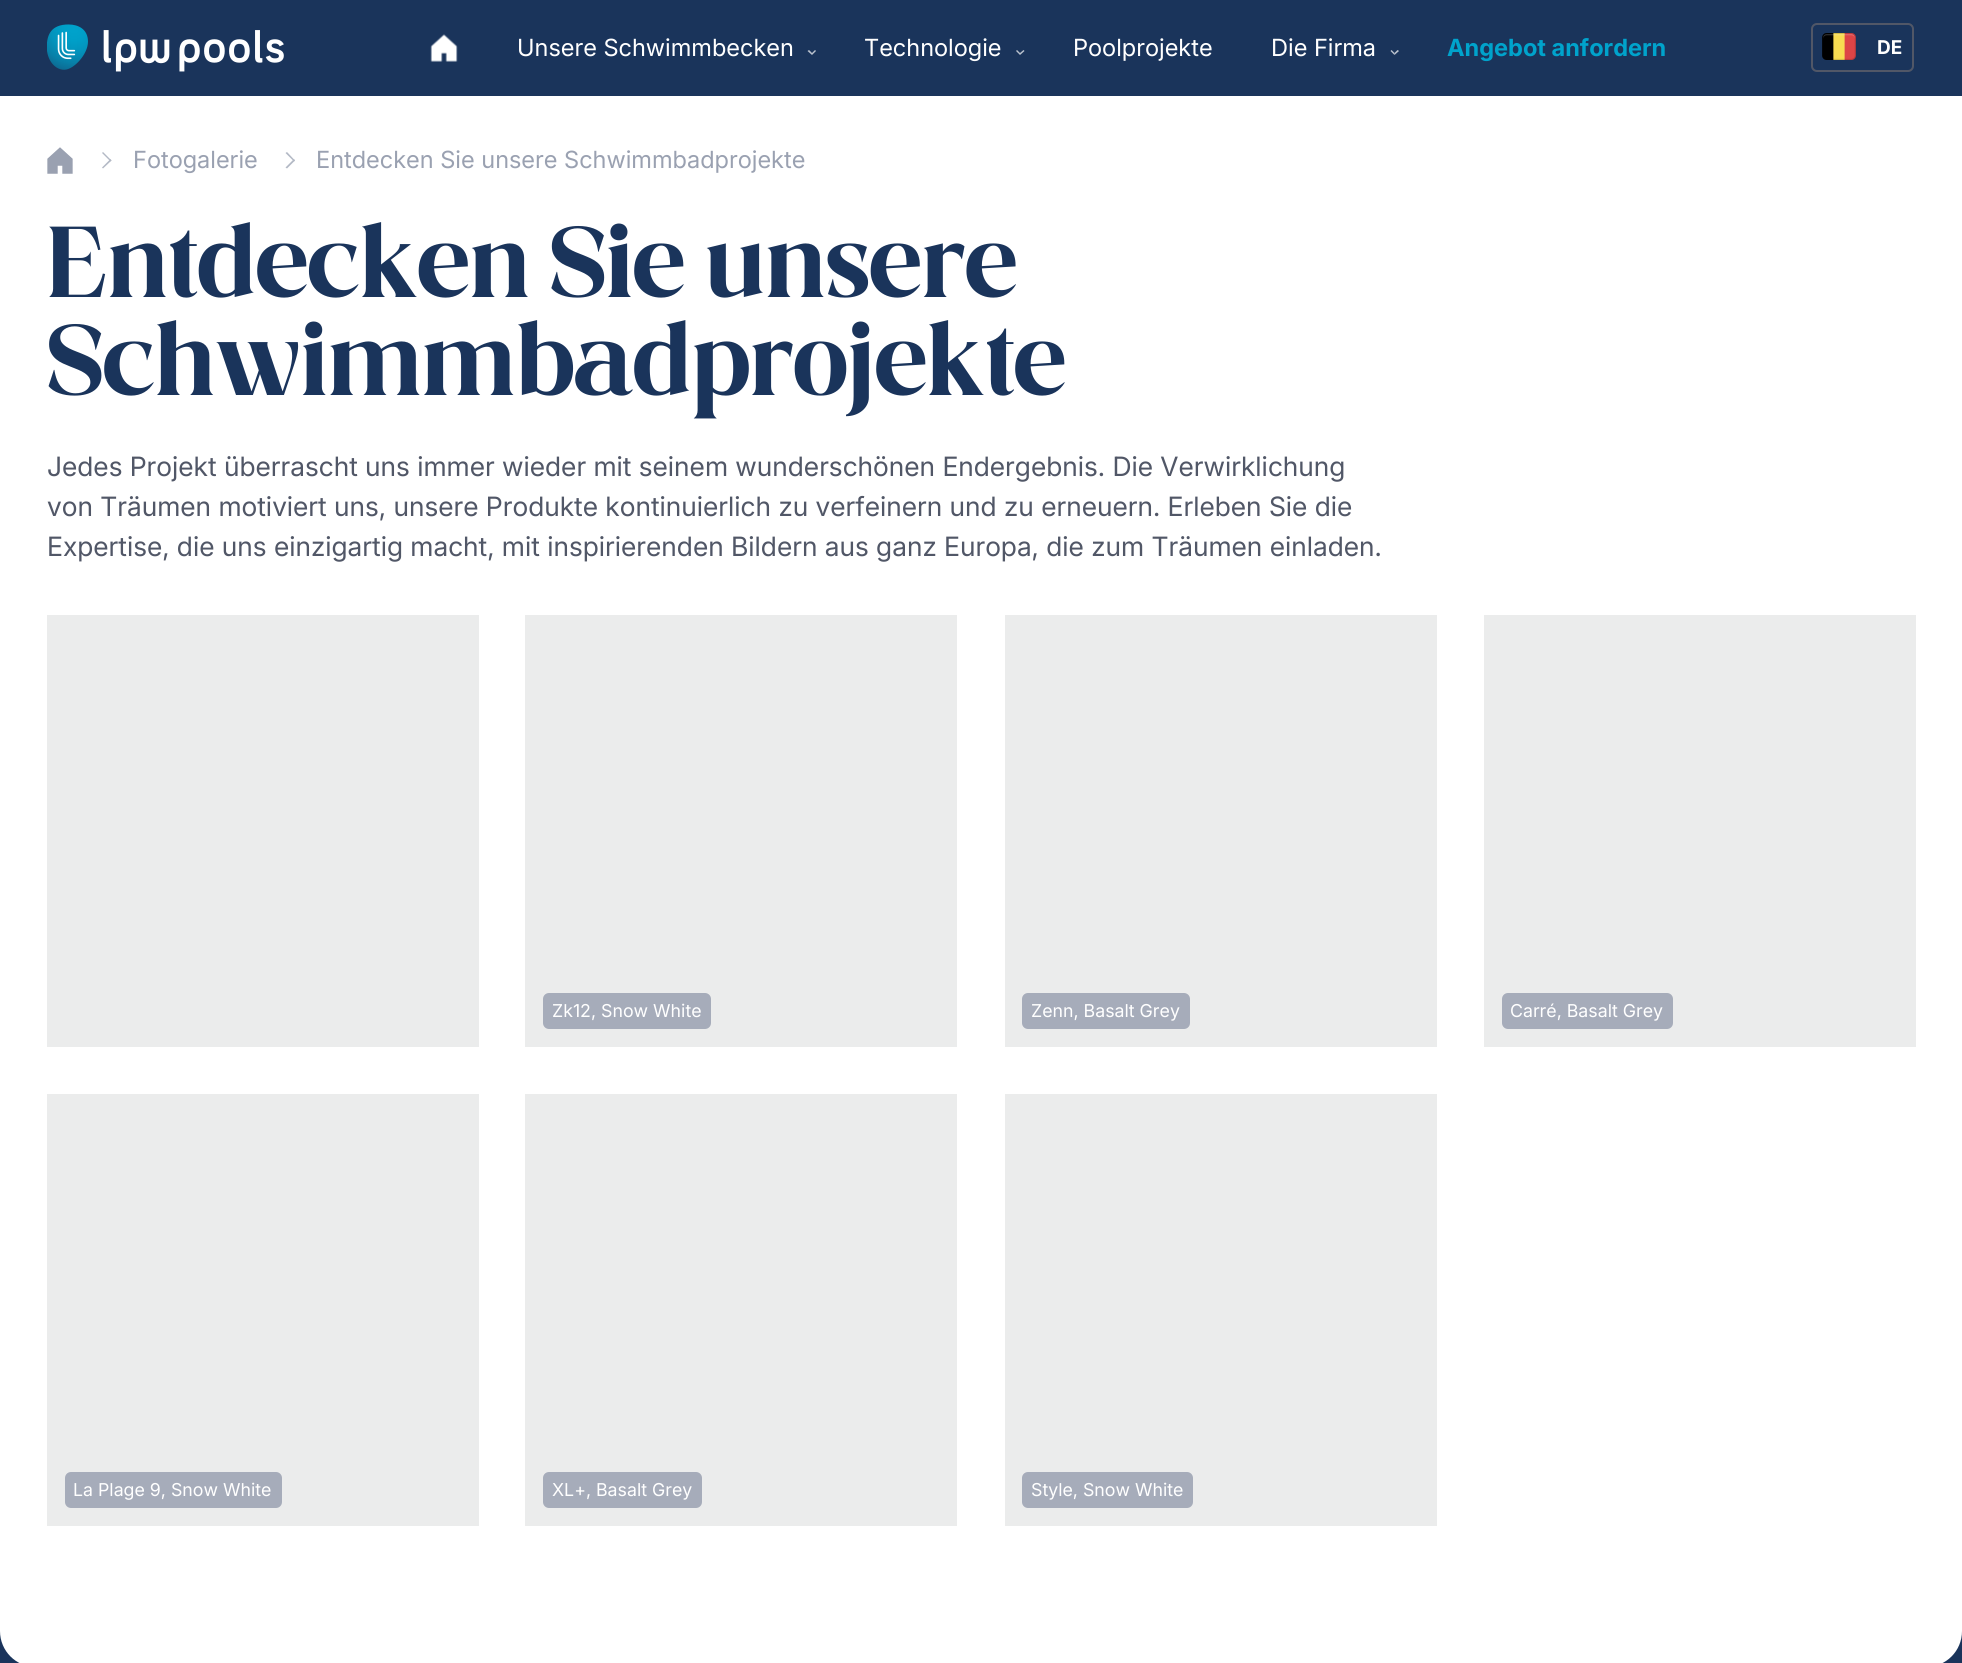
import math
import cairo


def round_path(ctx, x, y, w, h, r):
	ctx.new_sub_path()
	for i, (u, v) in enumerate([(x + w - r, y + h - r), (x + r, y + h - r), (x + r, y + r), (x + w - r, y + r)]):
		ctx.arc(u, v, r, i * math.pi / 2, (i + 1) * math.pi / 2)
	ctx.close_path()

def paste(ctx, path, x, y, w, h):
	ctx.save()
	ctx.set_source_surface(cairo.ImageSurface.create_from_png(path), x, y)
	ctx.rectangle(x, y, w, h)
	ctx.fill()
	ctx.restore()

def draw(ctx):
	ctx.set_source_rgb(0.102, 0.204, 0.357)
	ctx.paint()
	paste(ctx, 'media/1.png', 47, 24, 237, 48)
	paste(ctx, 'media/2.png', 430, 34, 28, 28)
	ctx.select_font_face('Inter')
	ctx.set_font_size(23.65)
	ctx.set_source_rgb(1, 1, 1)
	ctx.move_to(517, 56)
	ctx.show_text('Unsere Schwimmbecken')
	ctx.set_source_rgb(0.729, 0.761, 0.808)
	ctx.new_path()
	ctx.move_to(816, 51)
	ctx.line_to(812, 55)
	ctx.line_to(812, 53)
	ctx.line_to(815, 50)
	ctx.close_path()
	ctx.move_to(812, 55)
	ctx.line_to(807.5, 51)
	ctx.line_to(809, 50)
	ctx.line_to(812, 53)
	ctx.close_path()
	ctx.fill()
	ctx.set_source_rgb(1, 1, 1)
	ctx.move_to(864, 56)
	ctx.show_text('Technologie')
	ctx.set_source_rgb(0.729, 0.761, 0.808)
	ctx.new_path()
	ctx.move_to(1024.5, 51)
	ctx.line_to(1020, 55)
	ctx.line_to(1020, 53)
	ctx.line_to(1023.5, 50)
	ctx.close_path()
	ctx.move_to(1020, 55)
	ctx.line_to(1016, 51)
	ctx.line_to(1017, 50)
	ctx.line_to(1020, 53)
	ctx.close_path()
	ctx.fill()
	ctx.set_source_rgb(1, 1, 1)
	ctx.move_to(1073, 56)
	ctx.show_text('Poolprojekte')
	ctx.move_to(1271, 56)
	ctx.show_text('Die Firma')
	ctx.set_source_rgb(0.729, 0.761, 0.808)
	ctx.new_path()
	ctx.move_to(1399, 51)
	ctx.line_to(1394.5, 55)
	ctx.line_to(1394.5, 53)
	ctx.line_to(1397.5, 50)
	ctx.close_path()
	ctx.fill()
	ctx.set_source_rgba(1, 1, 1, 0.7)
	ctx.new_path()
	ctx.move_to(1394.5, 55)
	ctx.line_to(1390.5, 51)
	ctx.line_to(1391.5, 50)
	ctx.line_to(1394.5, 53)
	ctx.close_path()
	ctx.fill()
	ctx.select_font_face('Inter', cairo.FONT_SLANT_NORMAL, cairo.FONT_WEIGHT_BOLD)
	ctx.set_source_rgb(0, 0.639, 0.8)
	ctx.move_to(1447, 56)
	ctx.show_text('Angebot anfordern')
	round_path(ctx, 1812, 24, 101, 47, 5)
	ctx.set_source_rgb(0.318, 0.341, 0.404)
	ctx.stroke()
	paste(ctx, 'media/3.png', 1822, 33, 34, 27)
	ctx.select_font_face('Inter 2', cairo.FONT_SLANT_NORMAL, cairo.FONT_WEIGHT_BOLD)
	ctx.set_font_size(19)
	ctx.set_source_rgb(1, 1, 1)
	ctx.move_to(1877, 54)
	ctx.show_text('DE')
	ctx.new_path()
	ctx.move_to(0, 96)
	ctx.line_to(1962, 96)
	ctx.line_to(1962, 1631)
	ctx.curve_to(1962, 1651, 1946, 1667, 1926, 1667)
	ctx.line_to(36, 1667)
	ctx.curve_to(16, 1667, 0, 1651, 0, 1631)
	ctx.close_path()
	ctx.fill()
	paste(ctx, 'media/4.png', 47, 147, 26, 27)
	ctx.set_source_rgb(0.702, 0.725, 0.773)
	ctx.new_path()
	ctx.move_to(102, 153)
	ctx.line_to(103, 152)
	ctx.line_to(111.5, 160.5)
	ctx.line_to(110.5, 161.5)
	ctx.close_path()
	ctx.fill()
	ctx.new_path()
	ctx.move_to(102, 167.5)
	ctx.line_to(110.5, 159)
	ctx.line_to(111.5, 160.5)
	ctx.line_to(103, 168.5)
	ctx.close_path()
	ctx.fill()
	ctx.select_font_face('Inter')
	ctx.set_font_size(23.65)
	ctx.set_source_rgb(0.604, 0.631, 0.694)
	ctx.move_to(133, 168)
	ctx.show_text('Fotogalerie')
	ctx.set_source_rgb(0.702, 0.725, 0.773)
	ctx.new_path()
	ctx.move_to(285.5, 153)
	ctx.line_to(287, 152)
	ctx.line_to(295, 160.5)
	ctx.line_to(294, 161.5)
	ctx.close_path()
	ctx.fill()
	ctx.new_path()
	ctx.move_to(285.5, 167.5)
	ctx.line_to(294, 159)
	ctx.line_to(295, 160.5)
	ctx.line_to(287, 168.5)
	ctx.close_path()
	ctx.fill()
	ctx.set_source_rgb(0.604, 0.631, 0.694)
	ctx.move_to(316, 168)
	ctx.show_text('Entdecken Sie unsere Schwimmbadprojekte')
	ctx.select_font_face('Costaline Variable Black')
	ctx.set_font_size(78.2)
	ctx.set_source_rgb(0.102, 0.204, 0.357)
	ctx.move_to(47, 297)
	ctx.show_text('Entdecken Sie unsere')
	ctx.move_to(47, 395)
	ctx.show_text('Schwimmbadprojekte')
	ctx.select_font_face('Inter 2')
	ctx.set_font_size(26.65)
	ctx.set_source_rgb(0.318, 0.341, 0.404)
	for x, y, s in [
		(47, 476, 'Jedes Projekt überrascht uns immer wieder mit seinem wunderschönen Endergebnis. Die Verwirklichung'),
		(47, 516, 'von Träumen motiviert uns, unsere Produkte kontinuierlich zu verfeinern und zu erneuern. Erleben Sie die'),
		(47, 556, 'Expertise, die uns einzigartig macht, mit inspirierenden Bildern aus ganz Europa, die zum Träumen einladen.'),
	]:
		ctx.move_to(x, y)
		ctx.show_text(s)
	ctx.set_source_rgb(0.918, 0.922, 0.922)
	ctx.rectangle(47, 615, 432, 432)
	ctx.fill()
	ctx.rectangle(525, 615, 432, 432)
	ctx.fill()
	ctx.set_source_rgb(0.651, 0.675, 0.729)
	round_path(ctx, 543, 993, 168, 36, 6)
	ctx.fill()
	ctx.select_font_face('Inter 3')
	ctx.set_font_size(17.75)
	ctx.set_source_rgb(1, 1, 1)
	ctx.move_to(552, 1017)
	ctx.show_text('Zk12, Snow White')
	ctx.set_source_rgb(0.918, 0.922, 0.922)
	ctx.rectangle(1005, 615, 432, 432)
	ctx.fill()
	ctx.set_source_rgb(0.651, 0.675, 0.729)
	round_path(ctx, 1022, 993, 168, 36, 6)
	ctx.fill()
	ctx.set_source_rgb(1, 1, 1)
	ctx.move_to(1031, 1017)
	ctx.show_text('Zenn, Basalt Grey')
	ctx.set_source_rgb(0.918, 0.922, 0.922)
	ctx.rectangle(1484, 615, 432, 432)
	ctx.fill()
	ctx.set_source_rgb(0.651, 0.675, 0.729)
	round_path(ctx, 1502, 993, 171, 36, 6)
	ctx.fill()
	ctx.set_source_rgb(1, 1, 1)
	ctx.move_to(1510, 1017)
	ctx.show_text('Carré, Basalt Grey')
	ctx.set_source_rgb(0.918, 0.922, 0.922)
	ctx.rectangle(47, 1094, 432, 432)
	ctx.fill()
	ctx.set_source_rgb(0.651, 0.675, 0.729)
	round_path(ctx, 65, 1472, 217, 36, 6)
	ctx.fill()
	ctx.set_source_rgb(1, 1, 1)
	ctx.move_to(73, 1496)
	ctx.show_text('La Plage 9, Snow White')
	ctx.set_source_rgb(0.918, 0.922, 0.922)
	ctx.rectangle(525, 1094, 432, 432)
	ctx.fill()
	ctx.set_source_rgb(0.651, 0.675, 0.729)
	round_path(ctx, 543, 1472, 159, 36, 6)
	ctx.fill()
	ctx.set_source_rgb(1, 1, 1)
	ctx.move_to(552, 1496)
	ctx.show_text('XL+, Basalt Grey')
	ctx.set_source_rgb(0.918, 0.922, 0.922)
	ctx.rectangle(1005, 1094, 432, 432)
	ctx.fill()
	ctx.set_source_rgb(0.651, 0.675, 0.729)
	round_path(ctx, 1022, 1472, 171, 36, 6)
	ctx.fill()
	ctx.set_source_rgb(1, 1, 1)
	ctx.move_to(1031, 1496)
	ctx.show_text('Style, Snow White')


surface = cairo.ImageSurface(cairo.FORMAT_RGB24, 1962, 1663)
ctx = cairo.Context(surface)
options = cairo.FontOptions()
options.set_hint_metrics(cairo.HINT_METRICS_OFF)
options.set_hint_style(cairo.HINT_STYLE_NONE)
ctx.set_font_options(options)
ctx.set_miter_limit(4)
draw(ctx)
surface.write_to_png('image.png')
